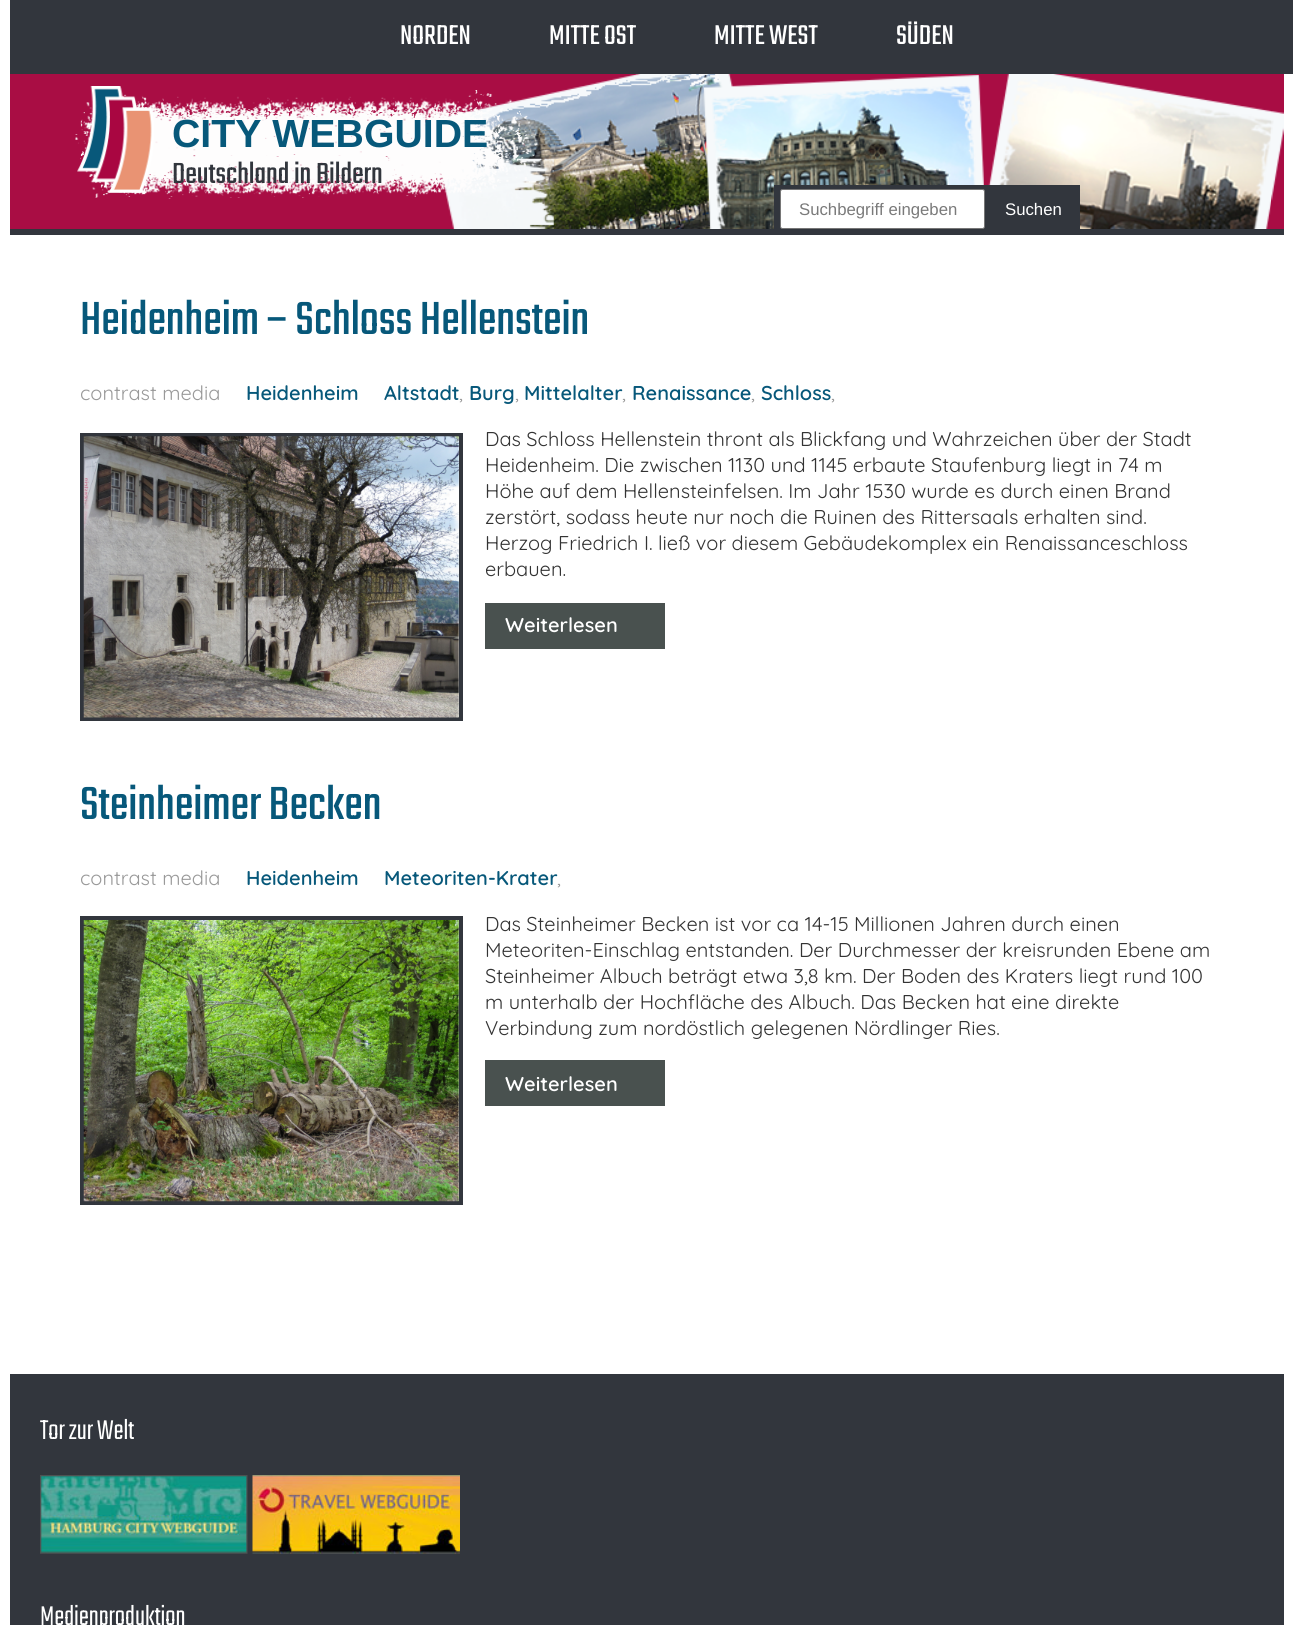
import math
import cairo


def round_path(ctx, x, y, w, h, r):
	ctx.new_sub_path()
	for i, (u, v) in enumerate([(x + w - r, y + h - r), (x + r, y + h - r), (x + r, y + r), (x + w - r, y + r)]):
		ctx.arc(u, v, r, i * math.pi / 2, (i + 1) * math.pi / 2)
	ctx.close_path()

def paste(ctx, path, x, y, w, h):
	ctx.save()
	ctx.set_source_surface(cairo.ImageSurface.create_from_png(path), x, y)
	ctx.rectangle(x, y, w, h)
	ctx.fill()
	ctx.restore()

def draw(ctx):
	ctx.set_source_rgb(1, 1, 1)
	ctx.paint()
	ctx.set_source_rgb(0.196, 0.212, 0.239)
	ctx.rectangle(10, 0, 1283, 74)
	ctx.fill()
	ctx.select_font_face('Teko Light')
	ctx.set_font_size(30)
	ctx.set_source_rgb(1, 1, 1)
	for x, y, s in [
		(400, 44, 'NORDEN'),
		(549, 44, 'MITTE OST'),
		(714, 44, 'MITTE WEST'),
		(896, 44, 'SÜDEN'),
	]:
		ctx.move_to(x, y)
		ctx.show_text(s)
	ctx.set_source_rgb(0.663, 0.051, 0.267)
	ctx.rectangle(10, 74, 421, 155)
	ctx.fill()
	paste(ctx, 'media/1.png', 431, 74, 853, 155)
	ctx.set_source_rgb(0.196, 0.212, 0.239)
	ctx.rectangle(10, 229, 1274, 6)
	ctx.fill()
	paste(ctx, 'media/2.png', 75, 90, 463, 109)
	paste(ctx, 'media/3.png', 77, 86, 77, 107)
	ctx.select_font_face('Liberation Sans', cairo.FONT_SLANT_NORMAL, cairo.FONT_WEIGHT_BOLD)
	ctx.set_font_size(39.25)
	ctx.set_source_rgb(0.031, 0.345, 0.478)
	ctx.move_to(172, 147)
	ctx.show_text('CITY WEBGUIDE')
	ctx.select_font_face('Teko Light')
	ctx.set_font_size(32)
	ctx.set_source_rgb(0.196, 0.212, 0.239)
	ctx.move_to(172, 183)
	ctx.show_text('Deutschland in Bildern')
	ctx.rectangle(774, 185, 306, 44)
	ctx.fill()
	ctx.set_source_rgb(1, 1, 1)
	round_path(ctx, 780.5, 189.5, 204, 39, 2)
	ctx.fill_preserve()
	ctx.set_source_rgb(0.463, 0.463, 0.463)
	ctx.set_line_width(1)
	ctx.stroke()
	ctx.select_font_face('Liberation Sans')
	ctx.set_font_size(16.75)
	ctx.set_source_rgb(0.478, 0.478, 0.478)
	ctx.move_to(799, 215)
	ctx.show_text('Suchbegriff eingeben')
	ctx.set_source_rgb(1, 1, 1)
	ctx.move_to(1005, 215)
	ctx.show_text('Suchen')
	ctx.select_font_face('Teko Light')
	ctx.set_font_size(51.25)
	ctx.set_source_rgb(0.031, 0.345, 0.478)
	ctx.move_to(80, 334)
	ctx.show_text('Heidenheim – Schloss Hellenstein')
	ctx.select_font_face('Quicksand Light')
	ctx.set_font_size(20)
	ctx.set_source_rgb(0.6, 0.6, 0.6)
	ctx.move_to(80, 400)
	ctx.show_text('contrast media')
	ctx.select_font_face('Quicksand SemiBold')
	ctx.set_source_rgb(0.031, 0.345, 0.478)
	ctx.move_to(246, 400)
	ctx.show_text('Heidenheim')
	ctx.move_to(384, 400)
	ctx.show_text('Altstadt')
	ctx.select_font_face('Quicksand Light')
	ctx.set_source_rgb(0.6, 0.6, 0.6)
	ctx.move_to(459, 400)
	ctx.show_text(',')
	ctx.select_font_face('Quicksand SemiBold')
	ctx.set_source_rgb(0.031, 0.345, 0.478)
	ctx.move_to(469, 400)
	ctx.show_text('Burg')
	ctx.select_font_face('Quicksand Light')
	ctx.set_source_rgb(0.6, 0.6, 0.6)
	ctx.move_to(515, 400)
	ctx.show_text(',')
	ctx.select_font_face('Quicksand SemiBold')
	ctx.set_source_rgb(0.031, 0.345, 0.478)
	ctx.move_to(524, 400)
	ctx.show_text('Mittelalter')
	ctx.select_font_face('Quicksand Light')
	ctx.set_source_rgb(0.6, 0.6, 0.6)
	ctx.move_to(622, 400)
	ctx.show_text(',')
	ctx.select_font_face('Quicksand SemiBold')
	ctx.set_source_rgb(0.031, 0.345, 0.478)
	ctx.move_to(632, 400)
	ctx.show_text('Renaissance')
	ctx.select_font_face('Quicksand Light')
	ctx.set_source_rgb(0.6, 0.6, 0.6)
	ctx.move_to(751, 400)
	ctx.show_text(',')
	ctx.select_font_face('Quicksand SemiBold')
	ctx.set_source_rgb(0.031, 0.345, 0.478)
	ctx.move_to(761, 400)
	ctx.show_text('Schloss')
	ctx.select_font_face('Quicksand Light')
	ctx.set_source_rgb(0.6, 0.6, 0.6)
	ctx.move_to(831, 400)
	ctx.show_text(',')
	ctx.rectangle(82, 435, 379, 284)
	ctx.set_source_rgb(0.196, 0.212, 0.239)
	ctx.set_line_width(4)
	ctx.stroke()
	paste(ctx, 'media/4.png', 83, 436, 376, 282)
	ctx.set_source_rgb(0.2, 0.2, 0.2)
	for x, y, s in [
		(485, 446, 'Das Schloss Hellenstein thront als Blickfang und Wahrzeichen über der Stadt'),
		(485, 472, 'Heidenheim. Die zwischen 1130 und 1145 erbaute Staufenburg liegt in 74 m'),
		(485, 498, 'Höhe auf dem Hellensteinfelsen. Im Jahr 1530 wurde es durch einen Brand'),
		(485, 524, 'zerstört, sodass heute nur noch die Ruinen des Rittersaals erhalten sind.'),
		(485, 550, 'Herzog Friedrich I. ließ vor diesem Gebäudekomplex ein Renaissanceschloss'),
		(485, 576, 'erbauen.'),
	]:
		ctx.move_to(x, y)
		ctx.show_text(s)
	ctx.set_source_rgb(0.286, 0.318, 0.31)
	ctx.rectangle(485, 603, 180, 46)
	ctx.fill()
	ctx.select_font_face('Quicksand SemiBold')
	ctx.set_source_rgb(1, 1, 1)
	ctx.move_to(505, 632)
	ctx.show_text('Weiterlesen')
	ctx.select_font_face('Teko Light')
	ctx.set_font_size(51.25)
	ctx.set_source_rgb(0.031, 0.345, 0.478)
	ctx.move_to(80, 819)
	ctx.show_text('Steinheimer Becken')
	ctx.select_font_face('Quicksand Light')
	ctx.set_font_size(20)
	ctx.set_source_rgb(0.6, 0.6, 0.6)
	ctx.move_to(80, 885)
	ctx.show_text('contrast media')
	ctx.select_font_face('Quicksand SemiBold')
	ctx.set_source_rgb(0.031, 0.345, 0.478)
	ctx.move_to(246, 885)
	ctx.show_text('Heidenheim')
	ctx.move_to(384, 885)
	ctx.show_text('Meteoriten-Krater')
	ctx.select_font_face('Quicksand Light')
	ctx.set_source_rgb(0.6, 0.6, 0.6)
	ctx.move_to(557, 885)
	ctx.show_text(',')
	ctx.rectangle(82, 918, 379, 285)
	ctx.set_source_rgb(0.196, 0.212, 0.239)
	ctx.stroke()
	paste(ctx, 'media/5.png', 83, 920, 376, 282)
	ctx.set_source_rgb(0.2, 0.2, 0.2)
	for x, y, s in [
		(485, 931, 'Das Steinheimer Becken ist vor ca 14-15 Millionen Jahren durch einen'),
		(485, 957, 'Meteoriten-Einschlag entstanden. Der Durchmesser der kreisrunden Ebene am'),
		(485, 983, 'Steinheimer Albuch beträgt etwa 3,8 km. Der Boden des Kraters liegt rund 100'),
		(485, 1009, 'm unterhalb der Hochfläche des Albuch. Das Becken hat eine direkte'),
		(485, 1035, 'Verbindung zum nordöstlich gelegenen Nördlinger Ries.'),
	]:
		ctx.move_to(x, y)
		ctx.show_text(s)
	ctx.set_source_rgb(0.286, 0.318, 0.31)
	ctx.rectangle(485, 1060, 180, 46)
	ctx.fill()
	ctx.select_font_face('Quicksand SemiBold')
	ctx.set_source_rgb(1, 1, 1)
	ctx.move_to(505, 1091)
	ctx.show_text('Weiterlesen')
	ctx.set_source_rgb(0.196, 0.212, 0.239)
	ctx.rectangle(10, 1374, 1274, 251)
	ctx.fill()
	ctx.select_font_face('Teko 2 Light')
	ctx.set_font_size(30)
	ctx.set_source_rgb(1, 1, 1)
	ctx.move_to(40, 1439)
	ctx.show_text('Tor zur Welt')
	paste(ctx, 'media/6.png', 40, 1475, 208, 79)
	paste(ctx, 'media/7.png', 252, 1475, 208, 79)
	ctx.move_to(40, 1625)
	ctx.show_text('Medienproduktion')


surface = cairo.ImageSurface(cairo.FORMAT_RGB24, 1293, 1625)
ctx = cairo.Context(surface)
options = cairo.FontOptions()
options.set_hint_metrics(cairo.HINT_METRICS_OFF)
options.set_hint_style(cairo.HINT_STYLE_NONE)
ctx.set_font_options(options)
ctx.set_miter_limit(4)
draw(ctx)
surface.write_to_png('image.png')
